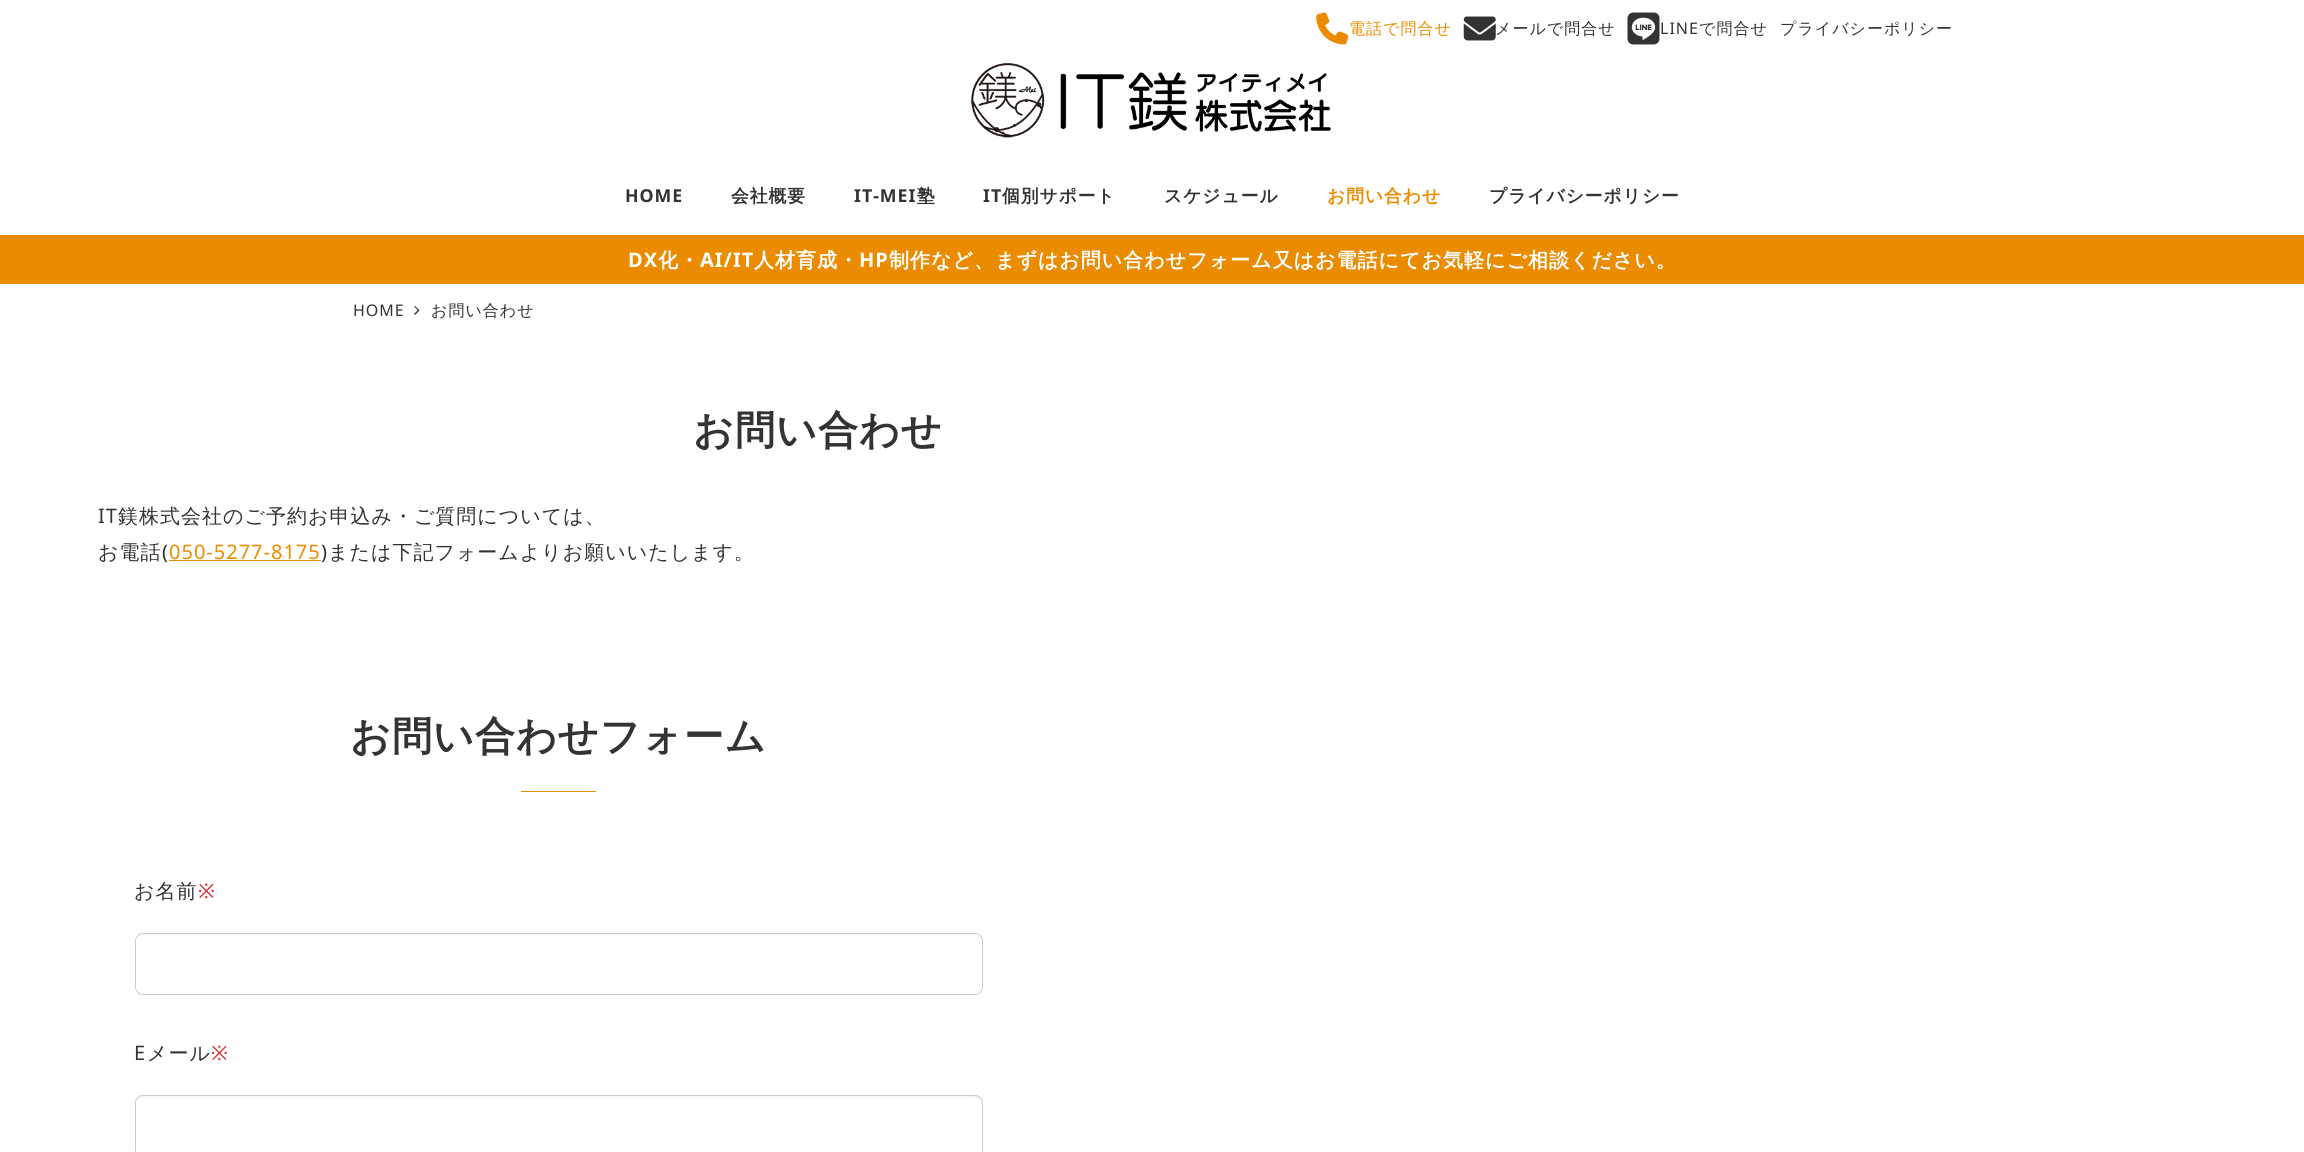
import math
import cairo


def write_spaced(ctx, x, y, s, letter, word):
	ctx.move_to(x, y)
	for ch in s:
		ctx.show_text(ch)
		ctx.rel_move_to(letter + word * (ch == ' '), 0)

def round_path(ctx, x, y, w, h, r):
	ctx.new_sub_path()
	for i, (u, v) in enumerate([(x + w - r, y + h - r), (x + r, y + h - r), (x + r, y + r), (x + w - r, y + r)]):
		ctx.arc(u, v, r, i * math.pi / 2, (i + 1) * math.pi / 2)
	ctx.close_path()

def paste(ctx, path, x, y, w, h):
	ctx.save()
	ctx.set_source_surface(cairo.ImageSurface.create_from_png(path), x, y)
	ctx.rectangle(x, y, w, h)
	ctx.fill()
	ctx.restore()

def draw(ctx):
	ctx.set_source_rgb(1, 1, 1)
	ctx.paint()
	paste(ctx, 'media/1.png', 1316, 12, 33, 33)
	ctx.select_font_face('WenQuanYi Zen Hei Medium')
	ctx.set_font_size(16)
	ctx.set_source_rgb(0.918, 0.545, 0)
	write_spaced(ctx, 1349, 34, '電話で問合せ', 1, 0)
	paste(ctx, 'media/2.png', 1463, 16, 33, 25)
	ctx.set_source_rgb(0.2, 0.2, 0.2)
	write_spaced(ctx, 1495, 34, 'メールで問合せ', 1, 0)
	paste(ctx, 'media/3.png', 1627, 12, 33, 33)
	ctx.select_font_face('Noto Sans')
	write_spaced(ctx, 1660, 34, 'LINE', 1, 0)
	ctx.select_font_face('WenQuanYi Zen Hei Medium')
	write_spaced(ctx, 1699, 34, 'で問合せ', 1, 0)
	write_spaced(ctx, 1780, 34, 'プライバシーポリシー', 1, 0)
	paste(ctx, 'media/4.png', 971, 63, 361, 75)
	ctx.select_font_face('Noto Sans', cairo.FONT_SLANT_NORMAL, cairo.FONT_WEIGHT_BOLD)
	ctx.set_font_size(17.75)
	write_spaced(ctx, 625, 202, 'HOME', 1, 0)
	ctx.select_font_face('WenQuanYi Zen Hei', cairo.FONT_SLANT_NORMAL, cairo.FONT_WEIGHT_BOLD)
	write_spaced(ctx, 731, 202, '会社概要', 1, 0)
	ctx.select_font_face('Noto Sans', cairo.FONT_SLANT_NORMAL, cairo.FONT_WEIGHT_BOLD)
	write_spaced(ctx, 854, 202, 'IT-MEI', 1, 0)
	ctx.select_font_face('WenQuanYi Zen Hei', cairo.FONT_SLANT_NORMAL, cairo.FONT_WEIGHT_BOLD)
	write_spaced(ctx, 917, 202, '塾', 1, 0)
	ctx.select_font_face('Noto Sans', cairo.FONT_SLANT_NORMAL, cairo.FONT_WEIGHT_BOLD)
	write_spaced(ctx, 983, 202, 'IT', 1, 0)
	ctx.select_font_face('WenQuanYi Zen Hei', cairo.FONT_SLANT_NORMAL, cairo.FONT_WEIGHT_BOLD)
	write_spaced(ctx, 1002, 202, '個別サポート', 1, 0)
	write_spaced(ctx, 1164, 202, 'スケジュール', 1, 0)
	ctx.set_source_rgb(0.918, 0.545, 0)
	write_spaced(ctx, 1327, 202, 'お問い合わせ', 1, 0)
	ctx.set_source_rgb(0.2, 0.2, 0.2)
	write_spaced(ctx, 1489, 202, 'プライバシーポリシー', 1, 0)
	ctx.set_source_rgb(0.918, 0.545, 0)
	ctx.rectangle(0, 235, 2304, 49)
	ctx.fill()
	ctx.select_font_face('Noto Sans', cairo.FONT_SLANT_NORMAL, cairo.FONT_WEIGHT_BOLD)
	ctx.set_font_size(20)
	ctx.set_source_rgb(1, 1, 1)
	write_spaced(ctx, 628, 267, 'DX', 1, 0)
	ctx.select_font_face('WenQuanYi Zen Hei', cairo.FONT_SLANT_NORMAL, cairo.FONT_WEIGHT_BOLD)
	write_spaced(ctx, 658, 267, '化・', 1, 0)
	ctx.select_font_face('Noto Sans', cairo.FONT_SLANT_NORMAL, cairo.FONT_WEIGHT_BOLD)
	write_spaced(ctx, 700, 267, 'AI/IT', 1, 0)
	ctx.select_font_face('WenQuanYi Zen Hei', cairo.FONT_SLANT_NORMAL, cairo.FONT_WEIGHT_BOLD)
	write_spaced(ctx, 754, 267, '人材育成・', 1, 0)
	ctx.select_font_face('Noto Sans', cairo.FONT_SLANT_NORMAL, cairo.FONT_WEIGHT_BOLD)
	write_spaced(ctx, 859, 267, 'HP', 1, 0)
	ctx.select_font_face('WenQuanYi Zen Hei', cairo.FONT_SLANT_NORMAL, cairo.FONT_WEIGHT_BOLD)
	write_spaced(ctx, 889, 267, '制作など、まずはお問い合わせフォーム又はお電話にてお気軽にご相談ください。', 1, 0)
	ctx.select_font_face('Noto Sans')
	ctx.set_font_size(16)
	ctx.set_source_rgb(0.2, 0.2, 0.2)
	write_spaced(ctx, 353, 316, 'HOME', 1, 0)
	ctx.new_path()
	ctx.move_to(415, 306)
	ctx.line_to(419.5, 310.5)
	ctx.line_to(418.5, 311)
	ctx.line_to(414, 306.5)
	ctx.close_path()
	ctx.fill()
	ctx.new_path()
	ctx.move_to(418.5, 309.5)
	ctx.line_to(419.5, 310.5)
	ctx.line_to(415, 315)
	ctx.line_to(414, 314)
	ctx.close_path()
	ctx.fill()
	ctx.select_font_face('WenQuanYi Zen Hei Medium')
	write_spaced(ctx, 431, 316, 'お問い合わせ', 1, 0)
	ctx.select_font_face('WenQuanYi Zen Hei', cairo.FONT_SLANT_NORMAL, cairo.FONT_WEIGHT_BOLD)
	ctx.set_font_size(40)
	write_spaced(ctx, 693, 444, 'お問い合わせ', 1, 0)
	ctx.select_font_face('Noto Sans')
	ctx.set_font_size(20)
	write_spaced(ctx, 98, 523, 'IT', 1, 0)
	ctx.select_font_face('WenQuanYi Zen Hei Medium')
	write_spaced(ctx, 118, 523, '鎂株式会社のご予約お申込み・ご質問については、', 1, 0)
	write_spaced(ctx, 98, 559, 'お電話', 1, 0)
	ctx.select_font_face('Noto Sans')
	write_spaced(ctx, 162, 559, '(', 1, 0)
	ctx.set_source_rgb(0.918, 0.545, 0)
	write_spaced(ctx, 169, 559, '050-5277-8175', 1, 0)
	ctx.rectangle(169, 560, 152, 1)
	ctx.fill()
	ctx.set_source_rgb(0.2, 0.2, 0.2)
	write_spaced(ctx, 321, 559, ')', 1, 0)
	ctx.select_font_face('WenQuanYi Zen Hei Medium')
	write_spaced(ctx, 328, 559, 'または下記フォームよりお願いいたします。', 1, 0)
	ctx.select_font_face('WenQuanYi Zen Hei', cairo.FONT_SLANT_NORMAL, cairo.FONT_WEIGHT_BOLD)
	ctx.set_font_size(40)
	write_spaced(ctx, 350, 750, 'お問い合わせフォーム', 1, 0)
	ctx.set_source_rgb(0.918, 0.545, 0)
	ctx.rectangle(521, 791, 75, 1)
	ctx.fill()
	ctx.select_font_face('WenQuanYi Zen Hei Medium')
	ctx.set_font_size(20)
	ctx.set_source_rgb(0.2, 0.2, 0.2)
	write_spaced(ctx, 134, 898, 'お名前', 1, 0)
	ctx.select_font_face('Noto Sans')
	ctx.set_source_rgb(0.812, 0.18, 0.18)
	write_spaced(ctx, 198, 898, '※', 1, 0)
	ctx.set_source_rgb(0.965, 0.965, 0.965)
	ctx.new_path()
	ctx.move_to(142, 935)
	ctx.line_to(975, 935)
	ctx.curve_to(978, 935, 981, 938, 981, 941)
	ctx.line_to(981, 940)
	ctx.curve_to(981, 937, 978, 934, 975, 934)
	ctx.line_to(142, 934)
	ctx.curve_to(139, 934, 136, 937, 136, 940)
	ctx.line_to(136, 941)
	ctx.curve_to(136, 938, 139, 935, 142, 935)
	ctx.close_path()
	ctx.fill()
	round_path(ctx, 135.5, 933.5, 847, 61, 7.5)
	ctx.set_source_rgb(0.8, 0.8, 0.8)
	ctx.set_line_width(1)
	ctx.stroke()
	ctx.set_source_rgb(0.2, 0.2, 0.2)
	write_spaced(ctx, 134, 1060, 'E', 1, 0)
	ctx.select_font_face('WenQuanYi Zen Hei Medium')
	write_spaced(ctx, 147, 1060, 'メール', 1, 0)
	ctx.select_font_face('Noto Sans')
	ctx.set_source_rgb(0.812, 0.18, 0.18)
	write_spaced(ctx, 211, 1060, '※', 1, 0)
	ctx.set_source_rgb(0.965, 0.965, 0.965)
	ctx.new_path()
	ctx.move_to(142, 1098)
	ctx.line_to(975, 1098)
	ctx.curve_to(978, 1098, 981, 1100, 981, 1104)
	ctx.curve_to(981, 1100, 980, 1096, 975, 1096)
	ctx.line_to(142, 1096)
	ctx.curve_to(137, 1096, 136, 1100, 136, 1104)
	ctx.curve_to(136, 1100, 139, 1098, 142, 1098)
	ctx.close_path()
	ctx.fill()
	round_path(ctx, 135.5, 1095.5, 847, 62, 7.5)
	ctx.set_source_rgb(0.8, 0.8, 0.8)
	ctx.stroke()


surface = cairo.ImageSurface(cairo.FORMAT_RGB24, 2304, 1152)
ctx = cairo.Context(surface)
options = cairo.FontOptions()
options.set_hint_metrics(cairo.HINT_METRICS_OFF)
options.set_hint_style(cairo.HINT_STYLE_NONE)
ctx.set_font_options(options)
ctx.set_miter_limit(4)
draw(ctx)
surface.write_to_png('image.png')
